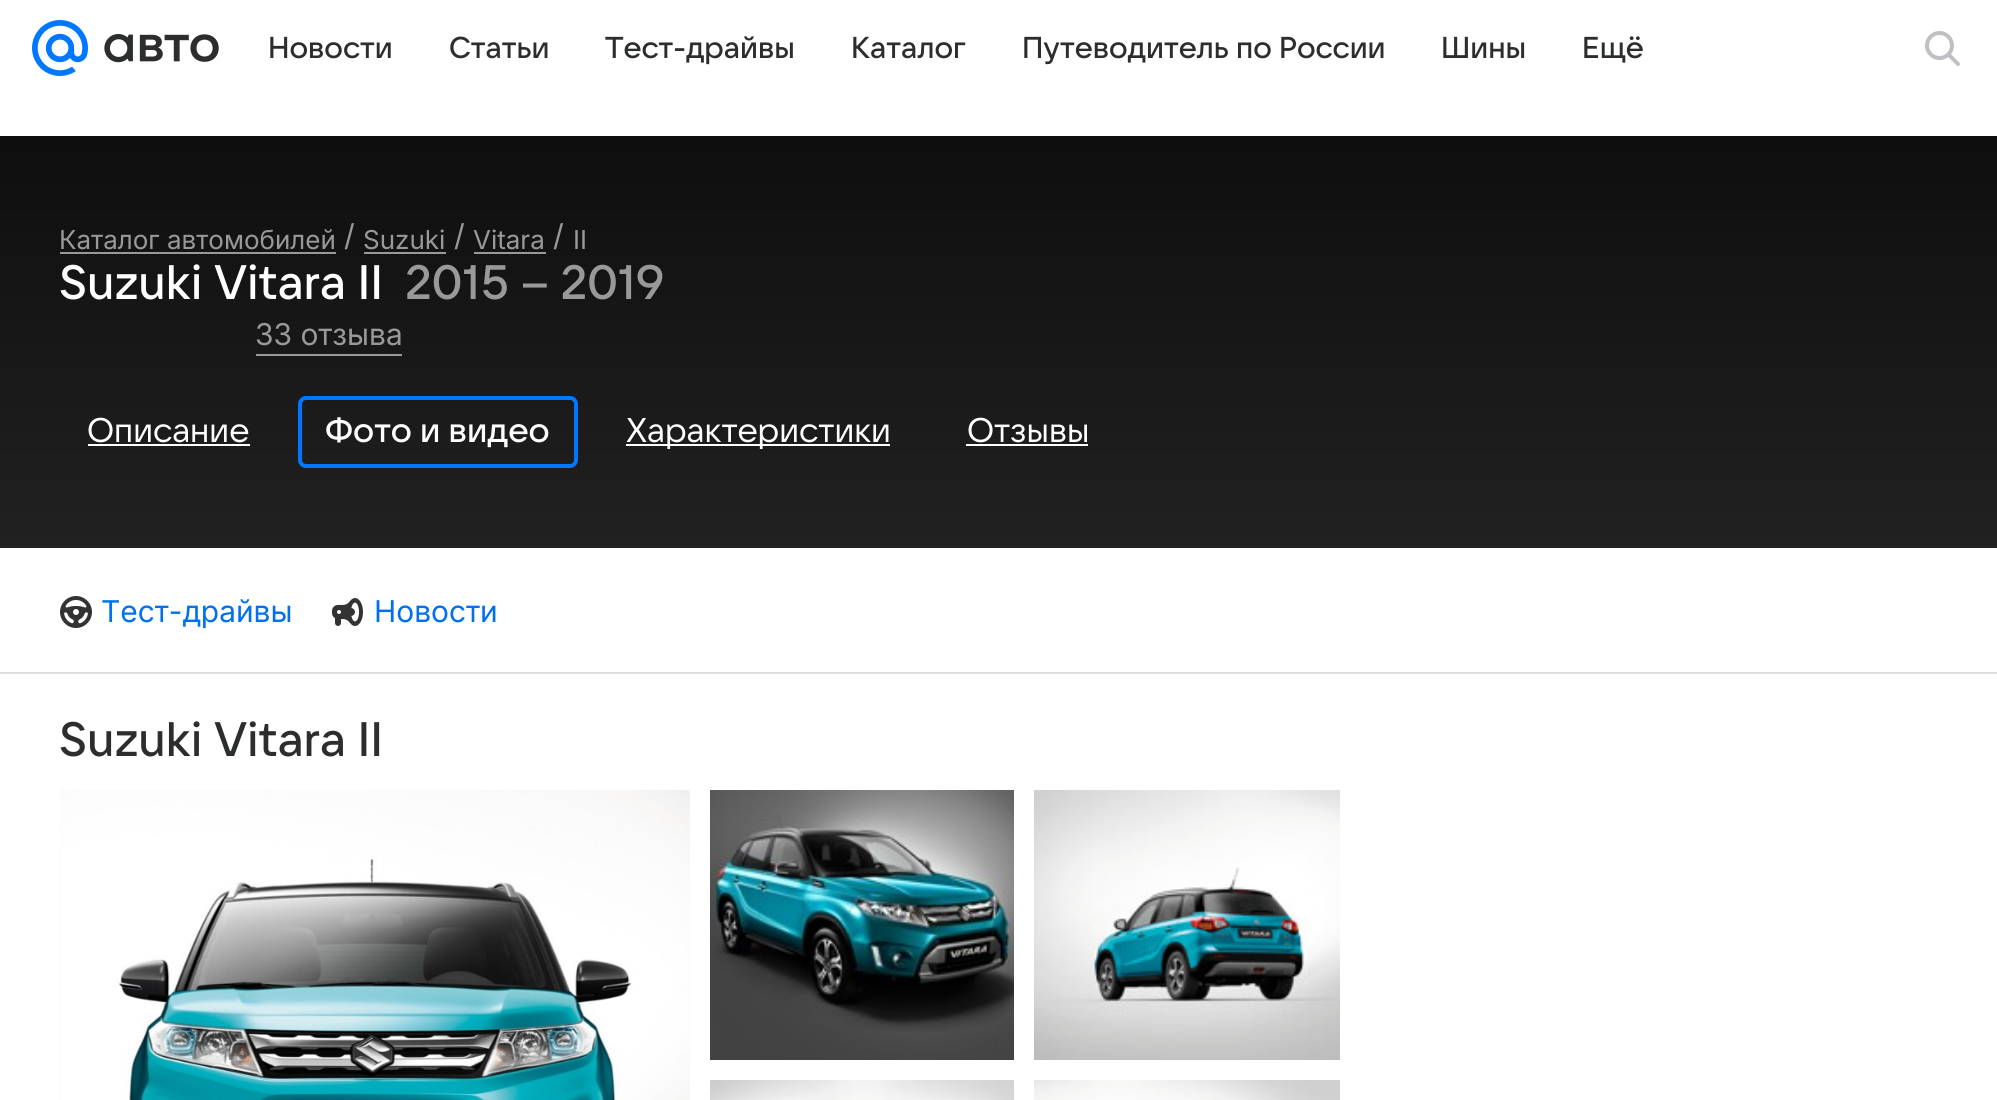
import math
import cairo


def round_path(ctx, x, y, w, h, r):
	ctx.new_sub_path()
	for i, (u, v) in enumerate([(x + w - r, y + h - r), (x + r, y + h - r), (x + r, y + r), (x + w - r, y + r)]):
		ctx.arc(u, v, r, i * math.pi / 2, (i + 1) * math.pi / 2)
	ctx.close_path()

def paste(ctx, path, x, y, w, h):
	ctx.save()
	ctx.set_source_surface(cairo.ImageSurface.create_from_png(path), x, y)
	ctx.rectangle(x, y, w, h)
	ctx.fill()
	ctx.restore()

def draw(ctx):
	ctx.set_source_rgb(1, 1, 1)
	ctx.paint()
	paste(ctx, 'media/1.png', 32, 20, 56, 56)
	paste(ctx, 'media/2.png', 104, 33, 115, 30)
	ctx.select_font_face('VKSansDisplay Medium')
	ctx.set_font_size(30)
	ctx.set_source_rgb(0.173, 0.176, 0.18)
	for x, y, s in [
		(268, 58, 'Новости'),
		(449, 58, 'Статьи'),
		(605, 58, 'Тест-драйвы'),
		(851, 58, 'Каталог'),
		(1022, 58, 'Путеводитель по России'),
		(1441, 58, 'Шины'),
		(1582, 58, 'Ещё'),
	]:
		ctx.move_to(x, y)
		ctx.show_text(s)
	paste(ctx, 'media/3.png', 1925, 31, 35, 35)
	gradient = cairo.LinearGradient(999, 136, 999, 548)
	gradient.add_color_stop_rgba(0, 0.055, 0.055, 0.055, 1)
	gradient.add_color_stop_rgba(1, 0.129, 0.129, 0.129, 1)
	ctx.set_source(gradient)
	ctx.rectangle(0, 136, 1997, 412)
	ctx.fill()
	ctx.select_font_face('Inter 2')
	ctx.set_font_size(26)
	ctx.set_source_rgb(0.6, 0.6, 0.6)
	ctx.move_to(59, 249)
	ctx.show_text('Каталог автомобилей')
	ctx.rectangle(60, 252, 276, 2)
	ctx.fill()
	ctx.select_font_face('Inter')
	ctx.set_font_size(30)
	ctx.move_to(344, 246)
	ctx.show_text('/')
	ctx.select_font_face('Inter 2')
	ctx.set_font_size(26)
	ctx.move_to(363, 249)
	ctx.show_text('Suzuki')
	ctx.rectangle(364, 252, 82, 2)
	ctx.fill()
	ctx.select_font_face('Inter')
	ctx.set_font_size(30)
	ctx.move_to(454, 246)
	ctx.show_text('/')
	ctx.select_font_face('Inter 2')
	ctx.set_font_size(26)
	ctx.move_to(473, 249)
	ctx.show_text('Vitara')
	ctx.rectangle(474, 252, 72, 2)
	ctx.fill()
	ctx.select_font_face('Inter')
	ctx.set_font_size(30)
	ctx.move_to(553, 246)
	ctx.show_text('/')
	ctx.select_font_face('Inter 2')
	ctx.set_font_size(26)
	ctx.move_to(573, 249)
	ctx.show_text('II')
	ctx.select_font_face('VKSansDisplay Medium')
	ctx.set_font_size(48)
	ctx.set_source_rgb(1, 1, 1)
	ctx.move_to(59, 299)
	ctx.show_text('Suzuki Vitara II')
	ctx.set_source_rgb(0.6, 0.6, 0.6)
	ctx.move_to(405, 299)
	ctx.show_text('2015 – 2019')
	ctx.select_font_face('Inter')
	ctx.set_font_size(30)
	ctx.move_to(255, 345)
	ctx.show_text('33 отзыва')
	ctx.rectangle(256, 354, 146, 2)
	ctx.fill()
	ctx.select_font_face('VKSansDisplay')
	ctx.set_font_size(34)
	ctx.set_source_rgb(1, 1, 1)
	ctx.move_to(87, 442)
	ctx.show_text('Описание')
	ctx.rectangle(88, 444, 162, 2)
	ctx.fill()
	round_path(ctx, 300, 398, 276, 68, 6)
	ctx.set_source_rgb(0, 0.467, 1)
	ctx.set_line_width(4)
	ctx.stroke()
	ctx.select_font_face('VKSansDisplay Medium')
	ctx.set_source_rgb(1, 1, 1)
	ctx.move_to(325, 442)
	ctx.show_text('Фото и видео')
	ctx.rectangle(626, 444, 264, 2)
	ctx.fill()
	ctx.select_font_face('VKSansDisplay')
	ctx.move_to(626, 442)
	ctx.show_text('Характеристики')
	ctx.move_to(967, 442)
	ctx.show_text('Отзывы')
	ctx.rectangle(966, 444, 122, 2)
	ctx.fill()
	ctx.set_source_rgb(0.871, 0.871, 0.871)
	ctx.rectangle(0, 672, 1997, 2)
	ctx.fill()
	paste(ctx, 'media/4.png', 60, 596, 32, 32)
	ctx.select_font_face('Inter')
	ctx.set_font_size(30)
	ctx.set_source_rgb(0, 0.439, 0.941)
	ctx.move_to(101, 622)
	ctx.show_text('Тест-драйвы')
	paste(ctx, 'media/5.png', 332, 598, 31, 28)
	ctx.move_to(374, 622)
	ctx.show_text('Новости')
	ctx.select_font_face('VKSansDisplay Medium')
	ctx.set_font_size(48)
	ctx.set_source_rgb(0.173, 0.176, 0.18)
	ctx.move_to(59, 756)
	ctx.show_text('Suzuki Vitara II')
	ctx.set_source_rgb(0.941, 0.941, 0.941)
	ctx.rectangle(60, 790, 630, 310)
	ctx.fill()
	paste(ctx, 'media/6.png', 60, 790, 630, 310)
	paste(ctx, 'media/7.png', 710, 790, 304, 270)
	paste(ctx, 'media/8.png', 1034, 790, 306, 270)
	paste(ctx, 'media/9.png', 710, 1080, 304, 20)
	paste(ctx, 'media/10.png', 1034, 1080, 306, 20)


surface = cairo.ImageSurface(cairo.FORMAT_RGB24, 1997, 1100)
ctx = cairo.Context(surface)
options = cairo.FontOptions()
options.set_hint_metrics(cairo.HINT_METRICS_OFF)
options.set_hint_style(cairo.HINT_STYLE_NONE)
ctx.set_font_options(options)
ctx.set_miter_limit(4)
draw(ctx)
surface.write_to_png('image.png')
